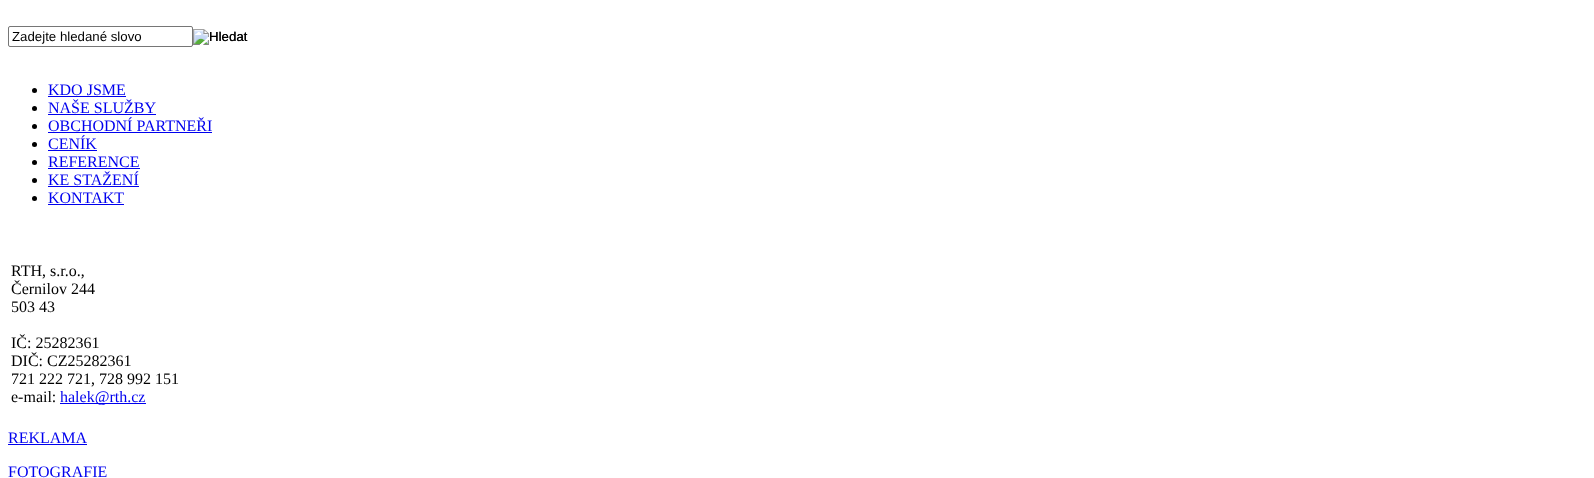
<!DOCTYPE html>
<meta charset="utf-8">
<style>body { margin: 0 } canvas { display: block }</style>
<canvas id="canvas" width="1594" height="478"></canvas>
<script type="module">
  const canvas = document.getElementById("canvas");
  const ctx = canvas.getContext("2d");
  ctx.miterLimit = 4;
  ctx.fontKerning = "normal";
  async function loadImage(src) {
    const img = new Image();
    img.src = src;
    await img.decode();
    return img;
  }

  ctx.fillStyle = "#ffffff";
  ctx.fillRect(0, 0, 1594, 478);
  ctx.beginPath();
  ctx.roundRect(8.5, 26.5, 184, 20, 1.5);
  ctx.strokeStyle = "#767676";
  ctx.stroke();
  ctx.font = "13.25px Liberation Sans";
  ctx.fillStyle = "#000000";
  ctx.fillText("Zadejte hledané slovo", 12, 41);
  ctx.drawImage(await loadImage("img1.png"), 193, 29, 55, 16);
  ctx.fillText("Hledat", 209, 41);
  ctx.beginPath();
  ctx.arc(34.5, 90.5, 2.5, 0, Math.PI * 2);
  ctx.fill();
  ctx.font = "16px Liberation Serif";
  ctx.fillStyle = "#0000ee";
  ctx.fillText("KDO JSME", 48, 95);
  ctx.fillRect(48, 96, 78, 1);
  ctx.fillStyle = "#000000";
  ctx.beginPath();
  ctx.arc(34.5, 108.5, 2.5, 0, Math.PI * 2);
  ctx.fill();
  ctx.fillStyle = "#0000ee";
  ctx.fillText("NAŠE SLUŽBY", 48, 113);
  ctx.fillRect(48, 114, 108, 1);
  ctx.fillStyle = "#000000";
  ctx.beginPath();
  ctx.arc(34.5, 126.5, 2.5, 0, Math.PI * 2);
  ctx.fill();
  ctx.fillStyle = "#0000ee";
  ctx.fillText("OBCHODNÍ PARTNEŘI", 48, 131);
  ctx.fillRect(48, 132, 164, 1);
  ctx.fillStyle = "#000000";
  ctx.beginPath();
  ctx.arc(34.5, 144.5, 2.5, 0, Math.PI * 2);
  ctx.fill();
  ctx.fillStyle = "#0000ee";
  ctx.fillText("CENÍK", 48, 149);
  ctx.fillRect(48, 150, 49, 1);
  ctx.fillStyle = "#000000";
  ctx.beginPath();
  ctx.arc(34.5, 162.5, 2.5, 0, Math.PI * 2);
  ctx.fill();
  ctx.fillStyle = "#0000ee";
  ctx.fillText("REFERENCE", 48, 167);
  ctx.fillRect(48, 168, 92, 1);
  ctx.fillStyle = "#000000";
  ctx.beginPath();
  ctx.arc(34.5, 180.5, 2.5, 0, Math.PI * 2);
  ctx.fill();
  ctx.fillStyle = "#0000ee";
  ctx.fillText("KE STAŽENÍ", 48, 185);
  ctx.fillRect(48, 186, 91, 1);
  ctx.fillStyle = "#000000";
  ctx.beginPath();
  ctx.arc(34.5, 198.5, 2.5, 0, Math.PI * 2);
  ctx.fill();
  ctx.fillStyle = "#0000ee";
  ctx.fillText("KONTAKT", 48, 203);
  ctx.fillRect(48, 204, 76, 1);
  ctx.fillStyle = "#000000";
  ctx.fillText("RTH, s.r.o.,", 11, 276);
  ctx.fillText("Černilov 244", 11, 294);
  ctx.fillText("503 43", 11, 312);
  ctx.fillText("IČ: 25282361", 11, 348);
  ctx.fillText("DIČ: CZ25282361", 11, 366);
  ctx.fillText("721 222 721, 728 992 151", 11, 384);
  ctx.fillText("e-mail:", 11, 402);
  ctx.fillStyle = "#0000ee";
  ctx.fillRect(60, 403, 86, 1);
  ctx.fillText("halek@rth.cz", 60, 402);
  ctx.fillText("REKLAMA", 8, 443);
  ctx.fillRect(8, 444, 79, 1);
  ctx.fillText("FOTOGRAFIE", 8, 477);
</script>
